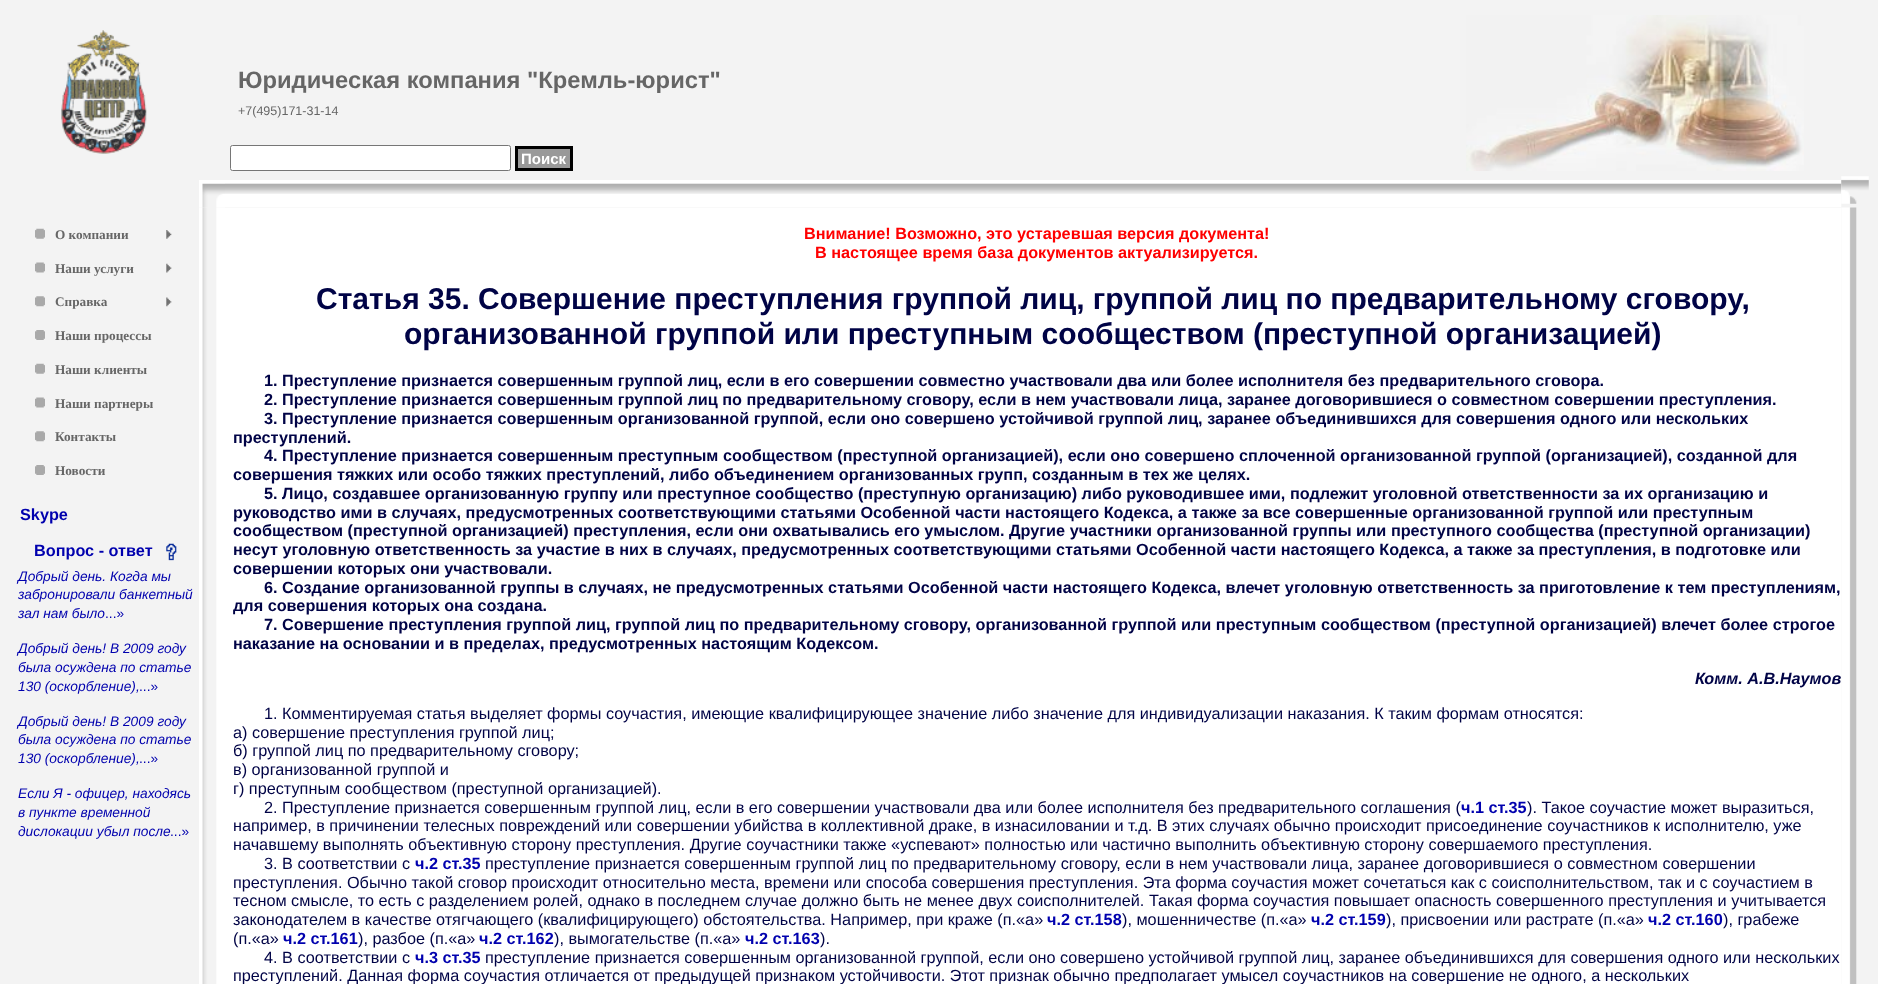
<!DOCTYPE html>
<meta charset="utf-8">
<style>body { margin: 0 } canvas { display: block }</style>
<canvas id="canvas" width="1878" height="984"></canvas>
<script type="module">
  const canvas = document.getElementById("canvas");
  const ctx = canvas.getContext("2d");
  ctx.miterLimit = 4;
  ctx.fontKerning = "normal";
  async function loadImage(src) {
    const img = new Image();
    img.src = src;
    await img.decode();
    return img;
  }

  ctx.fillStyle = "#f3f3f3";
  ctx.fillRect(0, 0, 1878, 984);
  ctx.drawImage(await loadImage("img1.png"), 61, 30, 86, 124);
  ctx.drawImage(await loadImage("img2.png"), 1466, 15, 338, 156);
  ctx.font = "bold 23.75px Liberation Sans";
  ctx.fillStyle = "#666666";
  ctx.fillText("Юридическая компания \"Кремль-юрист\"", 238, 88);
  ctx.font = "12.5px Liberation Sans";
  ctx.fillText("+7(495)171-31-14", 238, 115);
  ctx.fillStyle = "#ffffff";
  ctx.beginPath();
  ctx.roundRect(230.5, 145.5, 280, 25, 2);
  ctx.fill();
  ctx.strokeStyle = "#767676";
  ctx.stroke();
  ctx.fillStyle = "#999999";
  ctx.beginPath();
  ctx.rect(516.5, 147.5, 55, 22);
  ctx.fill();
  ctx.strokeStyle = "#000000";
  ctx.lineWidth = 3;
  ctx.stroke();
  ctx.font = "bold 15px Liberation Sans";
  ctx.fillStyle = "#ffffff";
  ctx.fillText("Поиск", 521, 164);
  ctx.drawImage(await loadImage("img3.png"), 199, 180, 26, 28);
  ctx.drawImage(await loadImage("img4.png"), 225, 180, 1617, 28);
  ctx.drawImage(await loadImage("img5.png"), 1841, 176, 28, 28);
  ctx.drawImage(await loadImage("img6.png"), 35, 228, 10, 11);
  ctx.font = "bold 13.25px Liberation Serif";
  ctx.fillStyle = "#666666";
  ctx.fillText("О компании", 55, 239);
  ctx.drawImage(await loadImage("img7.png"), 166, 230, 6, 9);
  ctx.drawImage(await loadImage("img8.png"), 35, 262, 10, 11);
  ctx.fillText("Наши услуги", 55, 273);
  ctx.drawImage(await loadImage("img9.png"), 166, 263, 6, 10);
  ctx.drawImage(await loadImage("img10.png"), 35, 296, 10, 11);
  ctx.fillText("Справка", 55, 306);
  ctx.drawImage(await loadImage("img11.png"), 166, 297, 6, 10);
  ctx.drawImage(await loadImage("img12.png"), 35, 330, 10, 10);
  ctx.fillText("Наши процессы", 55, 340);
  ctx.drawImage(await loadImage("img6.png"), 35, 363, 10, 11);
  ctx.fillText("Наши клиенты", 55, 374);
  ctx.drawImage(await loadImage("img8.png"), 35, 397, 10, 11);
  ctx.fillText("Наши партнеры", 55, 408);
  ctx.drawImage(await loadImage("img10.png"), 35, 431, 10, 11);
  ctx.fillText("Контакты", 55, 441);
  ctx.drawImage(await loadImage("img12.png"), 35, 465, 10, 10);
  ctx.fillText("Новости", 55, 475);
  ctx.font = "bold 16.25px Liberation Sans";
  ctx.fillStyle = "#0000ae";
  ctx.fillText("Skype", 20, 520);
  ctx.fillText("Вопрос - ответ", 34, 556);
  ctx.drawImage(await loadImage("img13.png"), 166, 543, 11, 18);
  ctx.font = "italic 13.75px Liberation Sans";
  ctx.fillText("Добрый день. Когда мы", 18, 581);
  ctx.fillText("забронировали банкетный", 18, 599);
  ctx.fillText("зал нам было", 18, 618);
  ctx.font = "13.75px Liberation Sans";
  ctx.fillText("...»", 105, 618);
  ctx.font = "italic 13.75px Liberation Sans";
  ctx.fillText("Добрый день! В 2009 году", 18, 653);
  ctx.fillText("была осуждена по статье", 18, 672);
  ctx.fillText("130 (оскорбление),", 18, 691);
  ctx.font = "13.75px Liberation Sans";
  ctx.fillText("...»", 139, 691);
  ctx.font = "italic 13.75px Liberation Sans";
  ctx.fillText("Добрый день! В 2009 году", 18, 726);
  ctx.fillText("была осуждена по статье", 18, 744);
  ctx.fillText("130 (оскорбление),", 18, 763);
  ctx.font = "13.75px Liberation Sans";
  ctx.fillText("...»", 139, 763);
  ctx.font = "italic 13.75px Liberation Sans";
  ctx.fillText("Если Я - офицер, находясь", 18, 798);
  ctx.fillText("в пункте временной", 18, 817);
  ctx.fillText("дислокации убыл после", 18, 836);
  ctx.font = "13.75px Liberation Sans";
  ctx.fillText("...»", 170, 836);
  ctx.drawImage(await loadImage("img14.png"), 199, 207, 26, 777);
  ctx.fillStyle = "#ffffff";
  ctx.fillRect(225, 208, 1616, 776);
  ctx.font = "bold 16.25px Liberation Sans";
  ctx.fillStyle = "#ff0000";
  ctx.fillText("Внимание! Возможно, это устаревшая версия документа!", 804, 239);
  ctx.fillText("В настоящее время база документов актуализируется.", 815, 258);
  ctx.font = "bold 30px Liberation Sans";
  ctx.fillStyle = "#000346";
  ctx.fillText("Статья 35. Совершение преступления группой лиц, группой лиц по предварительному сговору,", 316, 309);
  ctx.fillText("организованной группой или преступным сообществом (преступной организацией)", 404, 344);
  ctx.font = "bold 16.25px Liberation Sans";
  ctx.fillText("1. Преступление признается совершенным группой лиц, если в его совершении совместно участвовали два или более исполнителя без предварительного сговора.", 264, 386);
  ctx.fillText("2. Преступление признается совершенным группой лиц по предварительному сговору, если в нем участвовали лица, заранее договорившиеся о совместном совершении преступления.", 264, 405);
  ctx.fillText("3. Преступление признается совершенным организованной группой, если оно совершено устойчивой группой лиц, заранее объединившихся для совершения одного или нескольких", 264, 424);
  ctx.fillText("преступлений.", 233, 443);
  ctx.fillText("4. Преступление признается совершенным преступным сообществом (преступной организацией), если оно совершено сплоченной организованной группой (организацией), созданной для", 264, 461);
  ctx.fillText("совершения тяжких или особо тяжких преступлений, либо объединением организованных групп, созданным в тех же целях.", 233, 480);
  ctx.fillText("5. Лицо, создавшее организованную группу или преступное сообщество (преступную организацию) либо руководившее ими, подлежит уголовной ответственности за их организацию и", 264, 499);
  ctx.fillText("руководство ими в случаях, предусмотренных соответствующими статьями Особенной части настоящего Кодекса, а также за все совершенные организованной группой или преступным", 233, 518);
  ctx.fillText("сообществом (преступной организацией) преступления, если они охватывались его умыслом. Другие участники организованной группы или преступного сообщества (преступной организации)", 233, 536);
  ctx.fillText("несут уголовную ответственность за участие в них в случаях, предусмотренных соответствующими статьями Особенной части настоящего Кодекса, а также за преступления, в подготовке или", 233, 555);
  ctx.fillText("совершении которых они участвовали.", 233, 574);
  ctx.fillText("6. Создание организованной группы в случаях, не предусмотренных статьями Особенной части настоящего Кодекса, влечет уголовную ответственность за приготовление к тем преступлениям,", 264, 593);
  ctx.fillText("для совершения которых она создана.", 233, 611);
  ctx.fillText("7. Совершение преступления группой лиц, группой лиц по предварительному сговору, организованной группой или преступным сообществом (преступной организацией) влечет более строгое", 264, 630);
  ctx.fillText("наказание на основании и в пределах, предусмотренных настоящим Кодексом.", 233, 649);
  ctx.font = "italic bold 16.25px Liberation Sans";
  ctx.fillText("Комм. А.В.Наумов", 1695, 684);
  ctx.font = "16.25px Liberation Sans";
  ctx.fillText("1. Комментируемая статья выделяет формы соучастия, имеющие квалифицирующее значение либо значение для индивидуализации наказания. К таким формам относятся:", 264, 719);
  ctx.fillText("а) совершение преступления группой лиц;", 233, 738);
  ctx.fillText("б) группой лиц по предварительному сговору;", 233, 756);
  ctx.fillText("в) организованной группой и", 233, 775);
  ctx.fillText("г) преступным сообществом (преступной организацией).", 233, 794);
  ctx.fillText("2. Преступление признается совершенным группой лиц, если в его совершении участвовали два или более исполнителя без предварительного соглашения (", 264, 813);
  ctx.font = "bold 16.25px Liberation Sans";
  ctx.fillStyle = "#0000ae";
  ctx.fillText("ч.1 ст.35", 1461, 813);
  ctx.font = "16.25px Liberation Sans";
  ctx.fillStyle = "#000346";
  ctx.fillText("). Такое соучастие может выразиться,", 1527, 813);
  ctx.fillText("например, в причинении телесных повреждений или совершении убийства в коллективной драке, в изнасиловании и т.д. В этих случаях обычно происходит присоединение соучастников к исполнителю, уже", 233, 831);
  ctx.fillText("начавшему выполнять объективную сторону преступления. Другие соучастники также «успевают» полностью или частично выполнить объективную сторону совершаемого преступления.", 233, 850);
  ctx.fillText("3. В соответствии с", 264, 869);
  ctx.font = "bold 16.25px Liberation Sans";
  ctx.fillStyle = "#0000ae";
  ctx.fillText("ч.2 ст.35", 415, 869);
  ctx.font = "16.25px Liberation Sans";
  ctx.fillStyle = "#000346";
  ctx.fillText("преступление признается совершенным группой лиц по предварительному сговору, если в нем участвовали лица, заранее договорившиеся о совместном совершении", 485, 869);
  ctx.fillText("преступления. Обычно такой сговор происходит относительно места, времени или способа совершения преступления. Эта форма соучастия может сочетаться как с соисполнительством, так и с соучастием в", 233, 888);
  ctx.fillText("тесном смысле, то есть с разделением ролей, однако в последнем случае должно быть не менее двух соисполнителей. Такая форма соучастия повышает опасность совершенного преступления и учитывается", 233, 906);
  ctx.fillText("законодателем в качестве отягчающего (квалифицирующего) обстоятельства. Например, при краже (п.«а»", 233, 925);
  ctx.font = "bold 16.25px Liberation Sans";
  ctx.fillStyle = "#0000ae";
  ctx.fillText("ч.2 ст.158", 1047, 925);
  ctx.font = "16.25px Liberation Sans";
  ctx.fillStyle = "#000346";
  ctx.fillText("), мошенничестве (п.«а»", 1122, 925);
  ctx.font = "bold 16.25px Liberation Sans";
  ctx.fillStyle = "#0000ae";
  ctx.fillText("ч.2 ст.159", 1311, 925);
  ctx.font = "16.25px Liberation Sans";
  ctx.fillStyle = "#000346";
  ctx.fillText("), присвоении или растрате (п.«а»", 1386, 925);
  ctx.font = "bold 16.25px Liberation Sans";
  ctx.fillStyle = "#0000ae";
  ctx.fillText("ч.2 ст.160", 1648, 925);
  ctx.font = "16.25px Liberation Sans";
  ctx.fillStyle = "#000346";
  ctx.fillText("), грабеже", 1723, 925);
  ctx.fillText("(п.«а»", 233, 944);
  ctx.font = "bold 16.25px Liberation Sans";
  ctx.fillStyle = "#0000ae";
  ctx.fillText("ч.2 ст.161", 283, 944);
  ctx.font = "16.25px Liberation Sans";
  ctx.fillStyle = "#000346";
  ctx.fillText("), разбое (п.«а»", 358, 944);
  ctx.font = "bold 16.25px Liberation Sans";
  ctx.fillStyle = "#0000ae";
  ctx.fillText("ч.2 ст.162", 479, 944);
  ctx.font = "16.25px Liberation Sans";
  ctx.fillStyle = "#000346";
  ctx.fillText("), вымогательстве (п.«а»", 554, 944);
  ctx.font = "bold 16.25px Liberation Sans";
  ctx.fillStyle = "#0000ae";
  ctx.fillText("ч.2 ст.163", 745, 944);
  ctx.font = "16.25px Liberation Sans";
  ctx.fillStyle = "#000346";
  ctx.fillText(").", 820, 944);
  ctx.fillText("4. В соответствии с", 264, 963);
  ctx.font = "bold 16.25px Liberation Sans";
  ctx.fillStyle = "#0000ae";
  ctx.fillText("ч.3 ст.35", 415, 963);
  ctx.font = "16.25px Liberation Sans";
  ctx.fillStyle = "#000346";
  ctx.fillText("преступление признается совершенным организованной группой, если оно совершено устойчивой группой лиц, заранее объединившихся для совершения одного или нескольких", 485, 963);
  ctx.fillText("преступлений. Данная форма соучастия отличается от предыдущей признаком устойчивости. Этот признак обычно предполагает умысел соучастников на совершение не одного, а нескольких", 233, 981);
  ctx.drawImage(await loadImage("img15.png"), 1841, 207, 16, 777);
</script>
